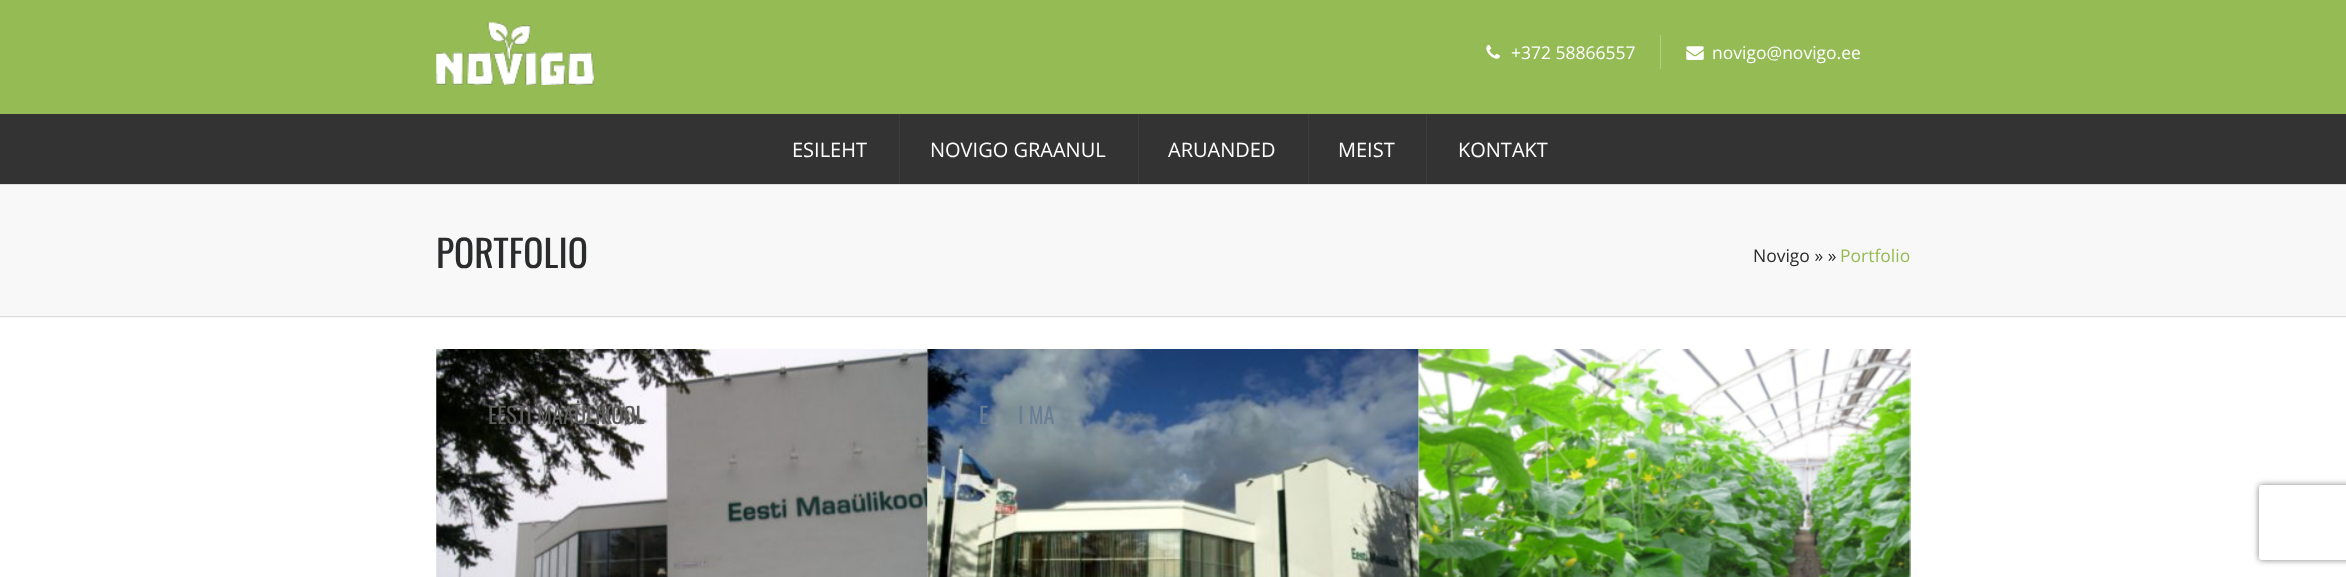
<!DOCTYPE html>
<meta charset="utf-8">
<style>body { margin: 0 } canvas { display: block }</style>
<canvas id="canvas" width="2346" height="577"></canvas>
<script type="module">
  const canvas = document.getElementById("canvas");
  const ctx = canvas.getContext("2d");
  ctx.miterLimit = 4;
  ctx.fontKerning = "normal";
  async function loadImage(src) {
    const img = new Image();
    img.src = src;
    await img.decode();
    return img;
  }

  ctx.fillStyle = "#ffffff";
  ctx.fillRect(0, 0, 2346, 577);
  ctx.fillStyle = "#94bb54";
  ctx.fillRect(0, 0, 2346, 114);
  ctx.drawImage(await loadImage("img1.png"), 436, 22, 158, 63);
  ctx.fillStyle = "#b4cf87";
  ctx.fillRect(1660, 35, 1, 34);
  ctx.drawImage(await loadImage("img2.png"), 1486, 45, 14, 14);
  ctx.font = "17.5px Open Sans";
  ctx.fillStyle = "#ffffff";
  ctx.fillText("+372 58866557", 1511, 59);
  ctx.drawImage(await loadImage("img3.png"), 1686, 46, 18, 14);
  ctx.fillText("novigo@novigo.ee", 1712, 59);
  ctx.fillStyle = "#333333";
  ctx.fillRect(0, 114, 2346, 70);
  ctx.fillStyle = "#3d3d3d";
  ctx.fillRect(899, 114, 1, 70);
  ctx.font = "20px Open Sans";
  ctx.fillStyle = "#ffffff";
  ctx.fillText("ESILEHT", 792, 157);
  ctx.fillStyle = "#3d3d3d";
  ctx.fillRect(1138, 114, 1, 70);
  ctx.fillStyle = "#ffffff";
  ctx.fillText("NOVIGO GRAANUL", 930, 157);
  ctx.fillStyle = "#3d3d3d";
  ctx.fillRect(1308, 114, 1, 70);
  ctx.fillStyle = "#ffffff";
  ctx.fillText("ARUANDED", 1168, 157);
  ctx.fillStyle = "#3d3d3d";
  ctx.fillRect(1426, 114, 1, 70);
  ctx.fillStyle = "#ffffff";
  ctx.fillText("MEIST", 1338, 157);
  ctx.fillText("KONTAKT", 1458, 157);
  ctx.fillStyle = "#f8f8f8";
  ctx.fillRect(0, 185, 2346, 133);
  ctx.fillStyle = "#dddddd";
  ctx.fillRect(0, 184, 2346, 1);
  ctx.fillRect(0, 316, 2346, 1);
  ctx.font = "37.5px Oswald";
  ctx.fillStyle = "#2a2b2c";
  ctx.fillText("PORTFOLIO", 436, 268);
  ctx.font = "17.5px Open Sans";
  ctx.fillText("Novigo » »", 1753, 262);
  ctx.fillStyle = "#94bb54";
  ctx.fillText("Portfolio", 1840, 262);
  ctx.drawImage(await loadImage("img4.png"), 436, 349, 492, 228);
  ctx.font = "22.5px Oswald";
  ctx.fillStyle = "#5e5d5d";
  ctx.fillText("EESTI MAAÜLIKOOL", 488, 424);
  ctx.drawImage(await loadImage("img5.png"), 927, 349, 492, 228);
  ctx.fillStyle = "#677e95";
  ctx.fillText("E", 979, 424);
  ctx.fillText("I MA", 1018, 424);
  ctx.drawImage(await loadImage("img6.png"), 1418, 349, 493, 228);
  ctx.save();
  ctx.beginPath();
  ctx.moveTo(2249, 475);
  ctx.lineTo(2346, 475);
  ctx.lineTo(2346, 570);
  ctx.lineTo(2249, 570);
  ctx.closePath();
  ctx.moveTo(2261.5, 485);
  ctx.lineTo(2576.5, 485);
  ctx.bezierCurveTo(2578, 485, 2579, 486, 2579, 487.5);
  ctx.lineTo(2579, 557.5);
  ctx.bezierCurveTo(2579, 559, 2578, 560, 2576.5, 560);
  ctx.lineTo(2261.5, 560);
  ctx.bezierCurveTo(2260, 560, 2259, 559, 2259, 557.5);
  ctx.lineTo(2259, 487.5);
  ctx.bezierCurveTo(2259, 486, 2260, 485, 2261.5, 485);
  ctx.closePath();
  ctx.clip("evenodd");
  ctx.fillStyle = "#808080";
  ctx.filter = "blur(3px)";
  ctx.beginPath();
  ctx.roundRect(2259, 485, 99, 75, 2.5);
  ctx.fill();
  ctx.filter = "none";
  ctx.restore();
</script>
